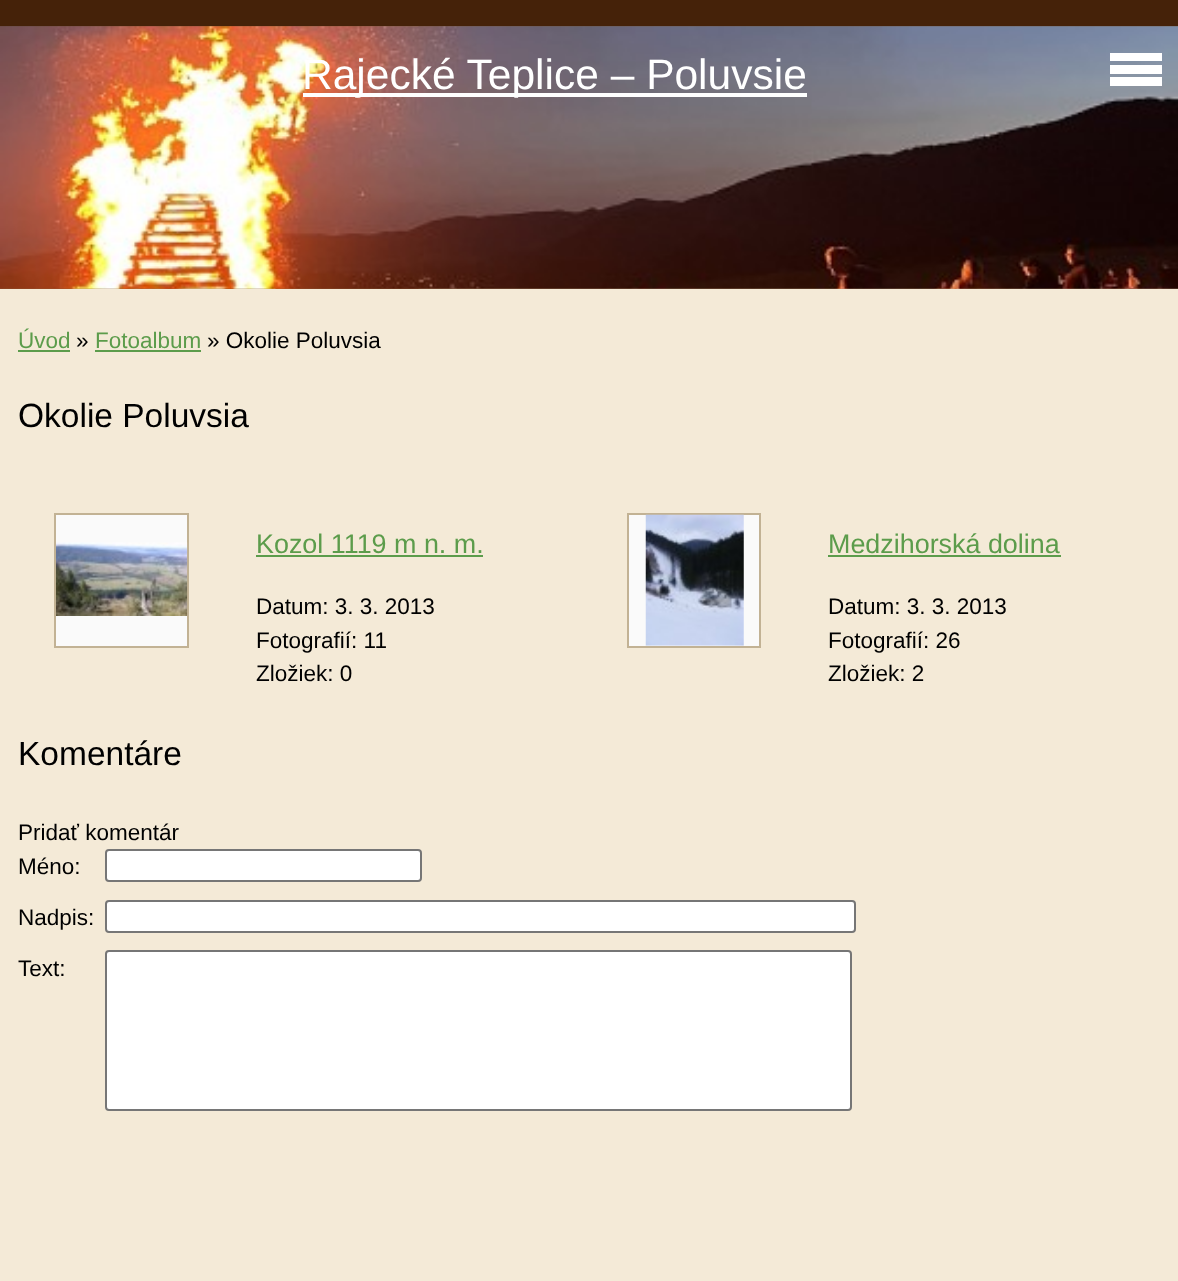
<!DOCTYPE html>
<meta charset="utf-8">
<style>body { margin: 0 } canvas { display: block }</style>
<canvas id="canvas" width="1178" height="1281"></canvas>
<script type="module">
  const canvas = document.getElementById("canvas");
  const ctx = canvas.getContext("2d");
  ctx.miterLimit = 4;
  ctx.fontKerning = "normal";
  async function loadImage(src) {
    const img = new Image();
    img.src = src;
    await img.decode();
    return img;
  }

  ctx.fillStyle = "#452209";
  ctx.fillRect(0, 0, 1178, 1281);
  ctx.fillStyle = "#f4ead7";
  ctx.fillRect(0, 26, 1178, 1255);
  ctx.drawImage(await loadImage("img1.png"), 0, 26, 1178, 263);
  ctx.drawImage(await loadImage("img2.png"), 0, 26, 1178, 263);
  ctx.fillStyle = "#ffffff";
  ctx.fillRect(303, 93, 504, 4);
  ctx.font = "42.5px Liberation Sans";
  ctx.fillText("Rajecké Teplice – Poluvsie", 302, 89);
  ctx.fillRect(1110, 53, 52, 8);
  ctx.fillRect(1110, 65, 52, 9);
  ctx.fillRect(1110, 77, 52, 9);
  ctx.font = "22.5px Liberation Sans";
  ctx.fillStyle = "#5c9c4b";
  ctx.fillText("Úvod", 18, 348);
  ctx.fillRect(18, 350, 52, 2);
  ctx.fillStyle = "#000000";
  ctx.fillText("»", 76, 348);
  ctx.fillStyle = "#5c9c4b";
  ctx.fillText("Fotoalbum", 95, 348);
  ctx.fillRect(95, 350, 106, 2);
  ctx.fillStyle = "#000000";
  ctx.fillText("» Okolie Poluvsia", 207, 348);
  ctx.font = "33.5px Liberation Sans";
  ctx.fillText("Okolie Poluvsia", 18, 427);
  ctx.fillStyle = "#fafafa";
  ctx.beginPath();
  ctx.rect(55, 514, 133, 133);
  ctx.fill();
  ctx.strokeStyle = "#c2b294";
  ctx.lineWidth = 2;
  ctx.stroke();
  ctx.drawImage(await loadImage("img3.png"), 56, 542, 132, 74);
  ctx.font = "26.9px Liberation Sans";
  ctx.fillStyle = "#5c9c4b";
  ctx.fillText("Kozol 1119 m n. m.", 256, 553);
  ctx.fillRect(256, 555, 227, 2);
  ctx.font = "22.5px Liberation Sans";
  ctx.fillStyle = "#000000";
  ctx.fillText("Datum: 3. 3. 2013", 256, 614);
  ctx.fillText("Fotografií: 11", 256, 648);
  ctx.fillText("Zložiek: 0", 256, 681);
  ctx.fillStyle = "#fafafa";
  ctx.beginPath();
  ctx.rect(628, 514, 132, 133);
  ctx.fill();
  ctx.stroke();
  ctx.drawImage(await loadImage("img4.png"), 645, 514, 99, 132);
  ctx.font = "26.9px Liberation Sans";
  ctx.fillStyle = "#5c9c4b";
  ctx.fillText("Medzihorská dolina", 828, 553);
  ctx.fillRect(828, 555, 233, 2);
  ctx.font = "22.5px Liberation Sans";
  ctx.fillStyle = "#000000";
  ctx.fillText("Datum: 3. 3. 2013", 828, 614);
  ctx.fillText("Fotografií: 26", 828, 648);
  ctx.fillText("Zložiek: 2", 828, 681);
  ctx.font = "33.5px Liberation Sans";
  ctx.fillText("Komentáre", 18, 765);
  ctx.font = "22.5px Liberation Sans";
  ctx.fillText("Pridať komentár", 18, 840);
  ctx.fillText("Méno:", 18, 874);
  ctx.fillStyle = "#ffffff";
  ctx.beginPath();
  ctx.roundRect(106, 850, 315, 31, 3);
  ctx.fill();
  ctx.strokeStyle = "#767676";
  ctx.stroke();
  ctx.fillStyle = "#000000";
  ctx.fillText("Nadpis:", 18, 925);
  ctx.fillStyle = "#ffffff";
  ctx.beginPath();
  ctx.roundRect(106, 901, 749, 31, 3);
  ctx.fill();
  ctx.stroke();
  ctx.fillStyle = "#000000";
  ctx.fillText("Text:", 18, 976);
  ctx.fillStyle = "#ffffff";
  ctx.beginPath();
  ctx.roundRect(106, 951, 745, 159, 3);
  ctx.fill();
  ctx.stroke();
</script>
